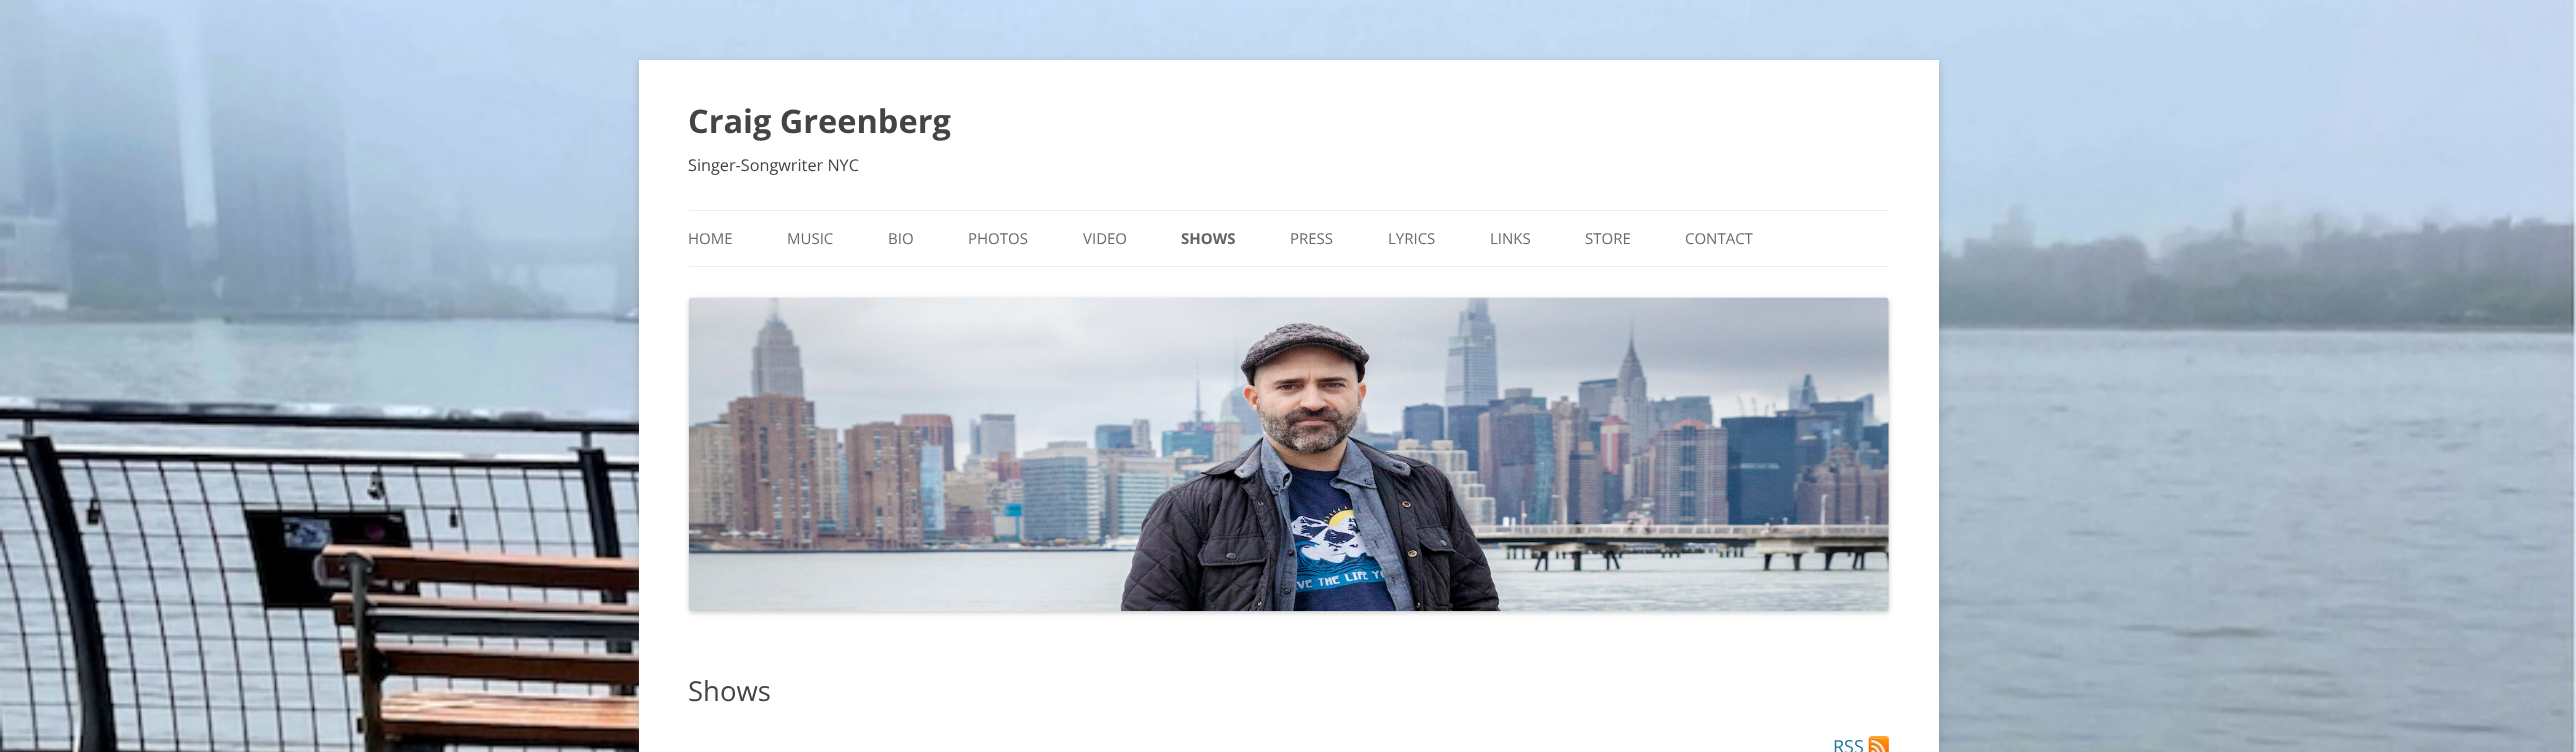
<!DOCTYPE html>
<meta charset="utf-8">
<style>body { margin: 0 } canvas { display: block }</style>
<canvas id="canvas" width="2576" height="752"></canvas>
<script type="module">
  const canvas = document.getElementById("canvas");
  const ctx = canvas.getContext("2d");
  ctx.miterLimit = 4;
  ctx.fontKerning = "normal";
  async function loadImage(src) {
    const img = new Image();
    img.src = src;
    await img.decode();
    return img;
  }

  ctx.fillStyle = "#ffffff";
  ctx.fillRect(0, 0, 2576, 752);
  ctx.drawImage(await loadImage("img1.png"), 0, 0, 2576, 752);
  ctx.fillStyle = "rgba(100, 100, 100, 0.3)";
  ctx.filter = "blur(4px)";
  ctx.beginPath();
  ctx.rect(639, 63, 1300, 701);
  ctx.fill();
  ctx.filter = "none";
  ctx.fillStyle = "#ffffff";
  ctx.fillRect(639, 60, 1300, 692);
  ctx.font = "bold 32.5px Open Sans";
  ctx.fillStyle = "#444444";
  ctx.fillText("Craig Greenberg", 688, 133);
  ctx.font = "16.25px Open Sans";
  ctx.fillText("Singer-Songwriter NYC", 688, 171);
  ctx.fillStyle = "#ededed";
  ctx.fillRect(689, 210, 1200, 1);
  ctx.fillRect(689, 266, 1200, 1);
  ctx.font = "15px Open Sans";
  ctx.fillStyle = "#6a6a6a";
  ctx.fillText("HOME", 688, 244);
  ctx.fillText("MUSIC", 787, 244);
  ctx.fillText("BIO", 888, 244);
  ctx.fillText("PHOTOS", 968, 244);
  ctx.fillText("VIDEO", 1083, 244);
  ctx.font = "bold 15px Open Sans";
  ctx.fillStyle = "#636363";
  ctx.fillText("SHOWS", 1181, 244);
  ctx.font = "15px Open Sans";
  ctx.fillStyle = "#6a6a6a";
  ctx.fillText("PRESS", 1290, 244);
  ctx.fillText("LYRICS", 1388, 244);
  ctx.fillText("LINKS", 1490, 244);
  ctx.fillText("STORE", 1585, 244);
  ctx.fillText("CONTACT", 1685, 244);
  ctx.fillStyle = "rgba(0, 0, 0, 0.2)";
  ctx.filter = "blur(2.5px)";
  ctx.beginPath();
  ctx.roundRect(689, 299, 1200, 314, 4);
  ctx.fill();
  ctx.filter = "none";
  ctx.drawImage(await loadImage("img2.png"), 688, 297, 1201, 315);
  ctx.font = "27.5px Open Sans";
  ctx.fillStyle = "#444444";
  ctx.fillText("Shows", 688, 701);
  ctx.drawImage(await loadImage("img3.png"), 1868, 736, 21, 16);
  ctx.font = "18px Open Sans";
  ctx.fillStyle = "#21759b";
  ctx.fillText("RSS", 1833, 753);
</script>
